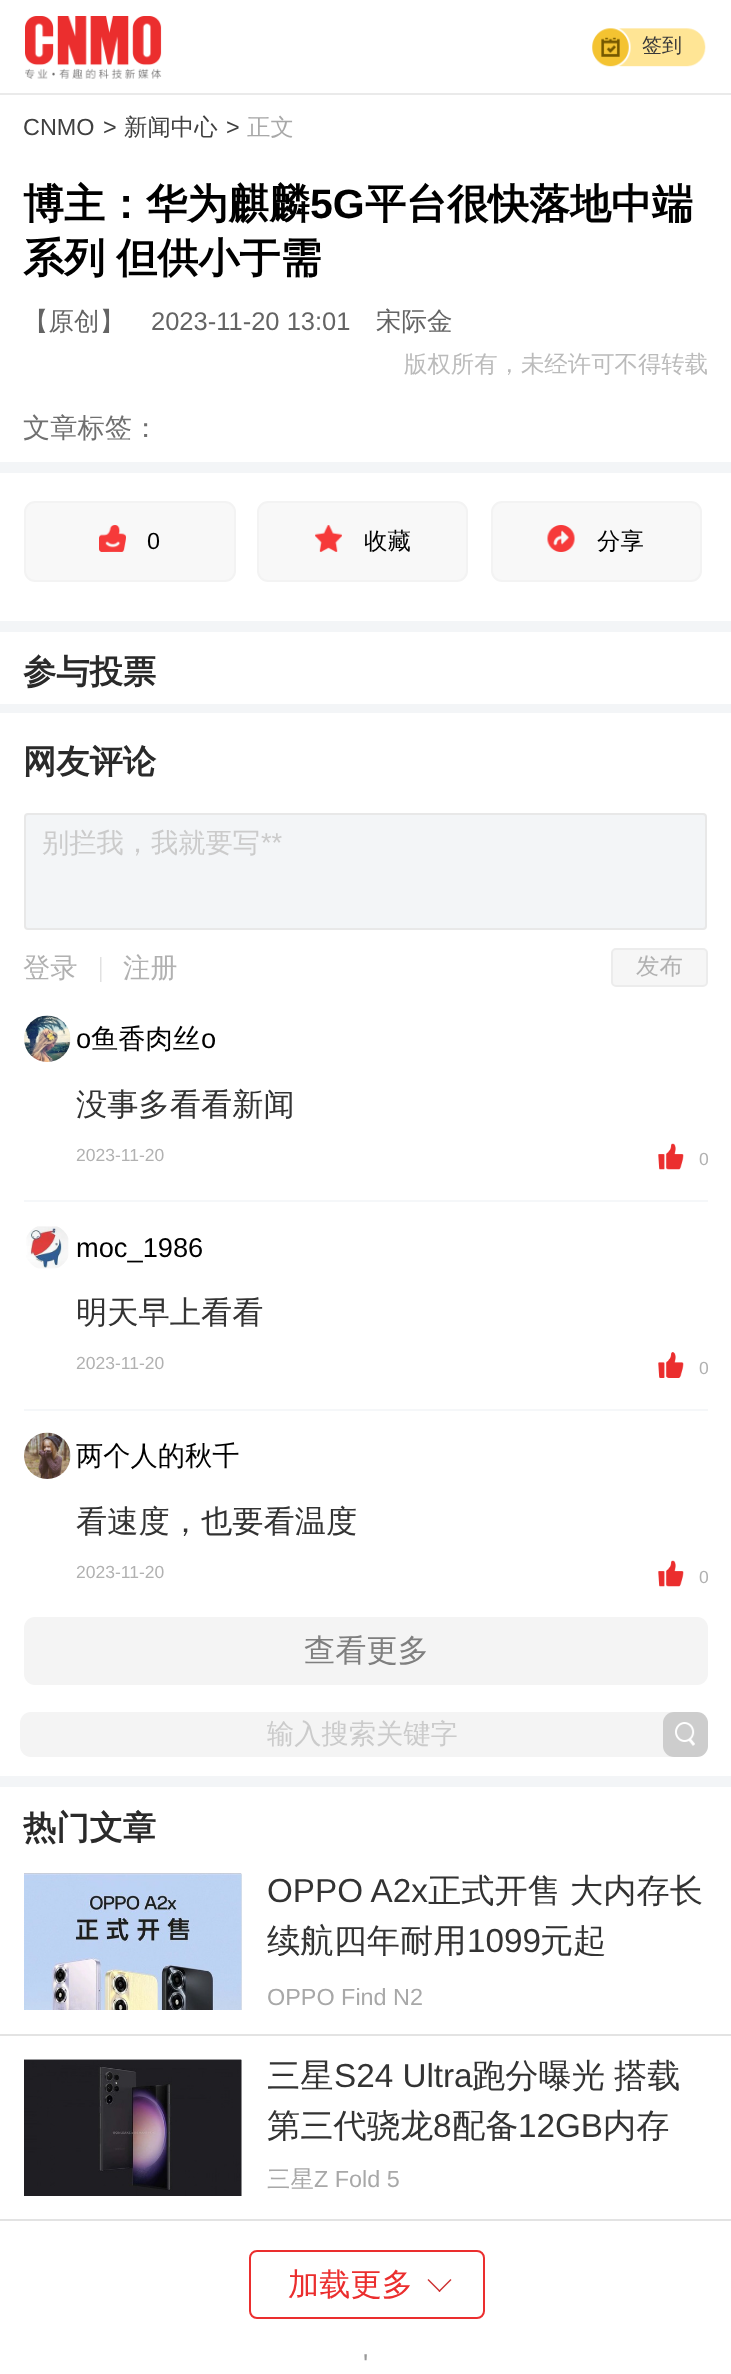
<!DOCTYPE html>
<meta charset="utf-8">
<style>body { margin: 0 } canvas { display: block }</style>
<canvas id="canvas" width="731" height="2374"></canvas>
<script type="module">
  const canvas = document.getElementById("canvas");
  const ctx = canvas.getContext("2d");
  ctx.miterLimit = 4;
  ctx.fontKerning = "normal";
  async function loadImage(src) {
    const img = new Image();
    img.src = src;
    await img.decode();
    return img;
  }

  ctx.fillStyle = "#ffffff";
  ctx.fillRect(0, 0, 731, 2374);
  ctx.fillStyle = "#eaeaea";
  ctx.fillRect(0, 93, 731, 2);
  ctx.drawImage(await loadImage("img1.png"), 25, 16, 137, 63);
  ctx.drawImage(await loadImage("img2.png"), 592, 28, 114, 39);
  ctx.font = "500 20px WenQuanYi Zen Hei";
  ctx.fillStyle = "#393939";
  ctx.fillText("签到", 642, 52);
  ctx.font = "23.4px Liberation Sans";
  ctx.fillStyle = "#404040";
  ctx.fillText("CNMO", 23, 135);
  ctx.fillText(">", 103, 135);
  ctx.font = "500 23.4px WenQuanYi Zen Hei";
  ctx.fillText("新闻中心", 124, 135);
  ctx.font = "23.4px Liberation Sans";
  ctx.fillText(">", 226, 135);
  ctx.font = "500 23.4px WenQuanYi Zen Hei";
  ctx.fillStyle = "#a8a8a8";
  ctx.fillText("正文", 247, 135);
  ctx.font = "bold 41px WenQuanYi Zen Hei";
  ctx.fillStyle = "#000000";
  ctx.fillText("博主：华为麒麟", 23, 218);
  ctx.font = "bold 41px Liberation Sans";
  ctx.fillText("5G", 310, 218);
  ctx.font = "bold 41px WenQuanYi Zen Hei";
  ctx.fillText("平台很快落地中端", 365, 218);
  ctx.wordSpacing = "-1px";
  ctx.fillText("系列 但供小于需", 23, 272);
  ctx.wordSpacing = "0px";
  ctx.font = "500 25.5px WenQuanYi Zen Hei";
  ctx.fillStyle = "#646464";
  ctx.fillText("【原创】", 23, 330);
  ctx.font = "25.5px Liberation Sans";
  ctx.fillText("2023-11-20 13:01", 151, 330);
  ctx.font = "500 25.5px WenQuanYi Zen Hei";
  ctx.fillText("宋际金", 376, 330);
  ctx.font = "500 23.4px WenQuanYi Zen Hei";
  ctx.fillStyle = "#bbbbbb";
  ctx.fillText("版权所有，未经许可不得转载", 404, 372);
  ctx.font = "500 27.25px WenQuanYi Zen Hei";
  ctx.fillStyle = "#707070";
  ctx.fillText("文章标签：", 23, 437);
  ctx.fillStyle = "#f3f5f7";
  ctx.fillRect(0, 462, 731, 11);
  ctx.fillStyle = "#f8f8f8";
  ctx.beginPath();
  ctx.roundRect(25, 502, 210, 79, 10);
  ctx.fill();
  ctx.strokeStyle = "#f3f3f3";
  ctx.lineWidth = 2;
  ctx.stroke();
  ctx.drawImage(await loadImage("img3.png"), 99, 525, 27, 27);
  ctx.font = "23.4px Liberation Sans";
  ctx.fillStyle = "#000000";
  ctx.fillText("0", 147, 549);
  ctx.fillStyle = "#f8f8f8";
  ctx.beginPath();
  ctx.roundRect(258, 502, 209, 79, 10);
  ctx.fill();
  ctx.stroke();
  ctx.drawImage(await loadImage("img4.png"), 315, 525, 27, 27);
  ctx.font = "500 23.4px WenQuanYi Zen Hei";
  ctx.fillStyle = "#000000";
  ctx.fillText("收藏", 364, 549);
  ctx.fillStyle = "#f8f8f8";
  ctx.beginPath();
  ctx.roundRect(492, 502, 209, 79, 10);
  ctx.fill();
  ctx.stroke();
  ctx.drawImage(await loadImage("img5.png"), 547, 525, 28, 27);
  ctx.fillStyle = "#000000";
  ctx.fillText("分享", 597, 549);
  ctx.fillStyle = "#f3f5f7";
  ctx.fillRect(0, 621, 731, 11);
  ctx.font = "bold 33.25px WenQuanYi Zen Hei";
  ctx.fillStyle = "#2a2a2a";
  ctx.fillText("参与投票", 23, 683);
  ctx.fillStyle = "#f3f5f7";
  ctx.fillRect(0, 704, 731, 9);
  ctx.fillStyle = "#2a2a2a";
  ctx.fillText("网友评论", 23, 773);
  ctx.fillStyle = "#f3f5f7";
  ctx.beginPath();
  ctx.roundRect(25, 814, 681, 115, 3);
  ctx.fill();
  ctx.strokeStyle = "#e8e8e8";
  ctx.stroke();
  ctx.font = "500 27.25px WenQuanYi Zen Hei";
  ctx.fillStyle = "#cbcbcb";
  ctx.fillText("别拦我，我就要写", 42, 852);
  ctx.font = "27.25px Liberation Sans";
  ctx.fillText("**", 261, 852);
  ctx.font = "500 27.25px WenQuanYi Zen Hei";
  ctx.fillStyle = "#b1b1b1";
  ctx.fillText("登录", 23, 977);
  ctx.font = "27.25px Liberation Serif";
  ctx.fillStyle = "#e0e0e0";
  ctx.fillText("|", 98, 976);
  ctx.font = "500 27.25px WenQuanYi Zen Hei";
  ctx.fillStyle = "#b1b1b1";
  ctx.fillText("注册", 123, 977);
  ctx.fillStyle = "#f6f6f6";
  ctx.beginPath();
  ctx.roundRect(612, 949, 95, 37, 4);
  ctx.fill();
  ctx.strokeStyle = "#ececec";
  ctx.stroke();
  ctx.font = "500 23.4px WenQuanYi Zen Hei";
  ctx.fillStyle = "#b1b1b1";
  ctx.fillText("发布", 636, 974);
  ctx.drawImage(await loadImage("img6.png"), 24, 1015, 47, 47);
  ctx.font = "27.25px Liberation Sans";
  ctx.fillStyle = "#000000";
  ctx.fillText("o", 76, 1048);
  ctx.font = "500 27.25px WenQuanYi Zen Hei";
  ctx.fillText("鱼香肉丝", 91, 1048);
  ctx.font = "27.25px Liberation Sans";
  ctx.fillText("o", 201, 1048);
  ctx.font = "500 31.25px WenQuanYi Zen Hei";
  ctx.fillStyle = "#333333";
  ctx.fillText("没事多看看新闻", 76, 1115);
  ctx.font = "17.5px Liberation Sans";
  ctx.fillStyle = "#b1b1b1";
  ctx.fillText("2023-11-20", 76, 1161);
  ctx.drawImage(await loadImage("img7.png"), 658, 1143, 26, 27);
  ctx.fillText("0", 699, 1165);
  ctx.fillStyle = "#f5f7f9";
  ctx.fillRect(24, 1200, 684, 2);
  ctx.drawImage(await loadImage("img8.png"), 26, 1226, 43, 43);
  ctx.font = "27.25px Liberation Sans";
  ctx.fillStyle = "#000000";
  ctx.fillText("moc_1986", 76, 1257);
  ctx.font = "500 31.25px WenQuanYi Zen Hei";
  ctx.fillStyle = "#333333";
  ctx.fillText("明天早上看看", 76, 1323);
  ctx.font = "17.5px Liberation Sans";
  ctx.fillStyle = "#b1b1b1";
  ctx.fillText("2023-11-20", 76, 1369);
  ctx.drawImage(await loadImage("img9.png"), 658, 1352, 26, 26);
  ctx.fillText("0", 699, 1374);
  ctx.fillStyle = "#f5f7f9";
  ctx.fillRect(24, 1409, 684, 2);
  ctx.drawImage(await loadImage("img10.png"), 24, 1432, 47, 47);
  ctx.font = "500 27.25px WenQuanYi Zen Hei";
  ctx.fillStyle = "#000000";
  ctx.fillText("两个人的秋千", 76, 1465);
  ctx.font = "500 31.25px WenQuanYi Zen Hei";
  ctx.fillStyle = "#333333";
  ctx.fillText("看速度，也要看温度", 76, 1532);
  ctx.font = "17.5px Liberation Sans";
  ctx.fillStyle = "#b1b1b1";
  ctx.fillText("2023-11-20", 76, 1578);
  ctx.drawImage(await loadImage("img7.png"), 658, 1560, 26, 27);
  ctx.fillText("0", 699, 1583);
  ctx.fillStyle = "#f4f4f4";
  ctx.beginPath();
  ctx.roundRect(24, 1617, 684, 68, 11);
  ctx.fill();
  ctx.font = "500 31.25px WenQuanYi Zen Hei";
  ctx.fillStyle = "#7f7f7f";
  ctx.fillText("查看更多", 304, 1661);
  ctx.fillStyle = "#f4f4f4";
  ctx.beginPath();
  ctx.roundRect(20, 1712, 685, 45, 11);
  ctx.fill();
  ctx.font = "500 27.25px WenQuanYi Zen Hei";
  ctx.fillStyle = "#cbcbcb";
  ctx.fillText("输入搜索关键字", 267, 1743);
  ctx.fillStyle = "#cdcdcd";
  ctx.beginPath();
  ctx.roundRect(663, 1712, 45, 45, 11);
  ctx.fill();
  ctx.drawImage(await loadImage("img11.png"), 675, 1722, 20, 24);
  ctx.fillStyle = "#f3f5f7";
  ctx.fillRect(0, 1776, 731, 11);
  ctx.font = "bold 33.25px WenQuanYi Zen Hei";
  ctx.fillStyle = "#2a2a2a";
  ctx.fillText("热门文章", 23, 1839);
  ctx.fillStyle = "#e3e3e3";
  ctx.fillRect(0, 2034, 731, 2);
  ctx.fillRect(241, 1874, 1, 136);
  ctx.drawImage(await loadImage("img12.png"), 24, 1873, 218, 137);
  ctx.drawImage(await loadImage("img13.png"), 24, 1873, 218, 137);
  ctx.font = "33.25px Liberation Sans";
  ctx.fillStyle = "#333333";
  ctx.fillText("OPPO A2x", 267, 1902);
  ctx.font = "500 33.25px WenQuanYi Zen Hei";
  ctx.fillText("正式开售", 428, 1902);
  ctx.fillText("大内存长", 570, 1902);
  ctx.save();
  ctx.beginPath();
  ctx.rect(267, 1866, 441, 90);
  ctx.clip();
  ctx.fillText("续航四年耐用", 267, 1952);
  ctx.restore();
  ctx.font = "33.25px Liberation Sans";
  ctx.fillText("1099", 467, 1952);
  ctx.save();
  ctx.beginPath();
  ctx.rect(267, 1866, 441, 90);
  ctx.clip();
  ctx.font = "500 33.25px WenQuanYi Zen Hei";
  ctx.fillText("元起", 540, 1952);
  ctx.restore();
  ctx.font = "23.4px Liberation Sans";
  ctx.fillStyle = "#a8a8a8";
  ctx.fillText("OPPO Find N2", 267, 2005);
  ctx.fillStyle = "#e3e3e3";
  ctx.fillRect(0, 2219, 731, 2);
  ctx.fillRect(241, 2060, 1, 136);
  ctx.drawImage(await loadImage("img14.png"), 24, 2059, 218, 137);
  ctx.drawImage(await loadImage("img15.png"), 24, 2059, 218, 137);
  ctx.font = "500 33.25px WenQuanYi Zen Hei";
  ctx.fillStyle = "#333333";
  ctx.fillText("三星", 267, 2087);
  ctx.font = "33.25px Liberation Sans";
  ctx.fillText("S24 Ultra", 334, 2087);
  ctx.font = "500 33.25px WenQuanYi Zen Hei";
  ctx.fillText("跑分曝光", 472, 2087);
  ctx.fillText("搭载", 614, 2087);
  ctx.save();
  ctx.beginPath();
  ctx.rect(267, 2051, 441, 90);
  ctx.clip();
  ctx.fillText("第三代骁龙", 267, 2137);
  ctx.restore();
  ctx.font = "33.25px Liberation Sans";
  ctx.fillText("8", 433, 2137);
  ctx.save();
  ctx.beginPath();
  ctx.rect(267, 2051, 441, 90);
  ctx.clip();
  ctx.font = "500 33.25px WenQuanYi Zen Hei";
  ctx.fillText("配备", 452, 2137);
  ctx.restore();
  ctx.fillText("12GB", 518, 2137);
  ctx.save();
  ctx.beginPath();
  ctx.rect(267, 2051, 441, 90);
  ctx.clip();
  ctx.font = "500 33.25px WenQuanYi Zen Hei";
  ctx.fillText("内存", 603, 2137);
  ctx.restore();
  ctx.font = "500 23.4px WenQuanYi Zen Hei";
  ctx.fillStyle = "#a8a8a8";
  ctx.fillText("三星", 267, 2187);
  ctx.font = "23.4px Liberation Sans";
  ctx.fillText("Z Fold 5", 314, 2187);
  ctx.beginPath();
  ctx.roundRect(250, 2251, 234, 67, 7);
  ctx.strokeStyle = "#eb2e2e";
  ctx.stroke();
  ctx.font = "500 31.25px WenQuanYi Zen Hei";
  ctx.fillStyle = "#eb2e2e";
  ctx.fillText("加载更多", 288, 2295);
  ctx.fillStyle = "#cc3131";
  ctx.beginPath();
  ctx.moveTo(451.5, 2280);
  ctx.lineTo(439.5, 2292);
  ctx.lineTo(438.5, 2291);
  ctx.lineTo(450.5, 2279);
  ctx.closePath();
  ctx.fill();
  ctx.beginPath();
  ctx.moveTo(440.5, 2291);
  ctx.lineTo(439.5, 2292);
  ctx.lineTo(427.5, 2280);
  ctx.lineTo(428.5, 2279);
  ctx.closePath();
  ctx.fill();
  ctx.font = "27.25px Liberation Sans";
  ctx.fillStyle = "#999999";
  ctx.fillText("'", 363, 2373);
</script>
